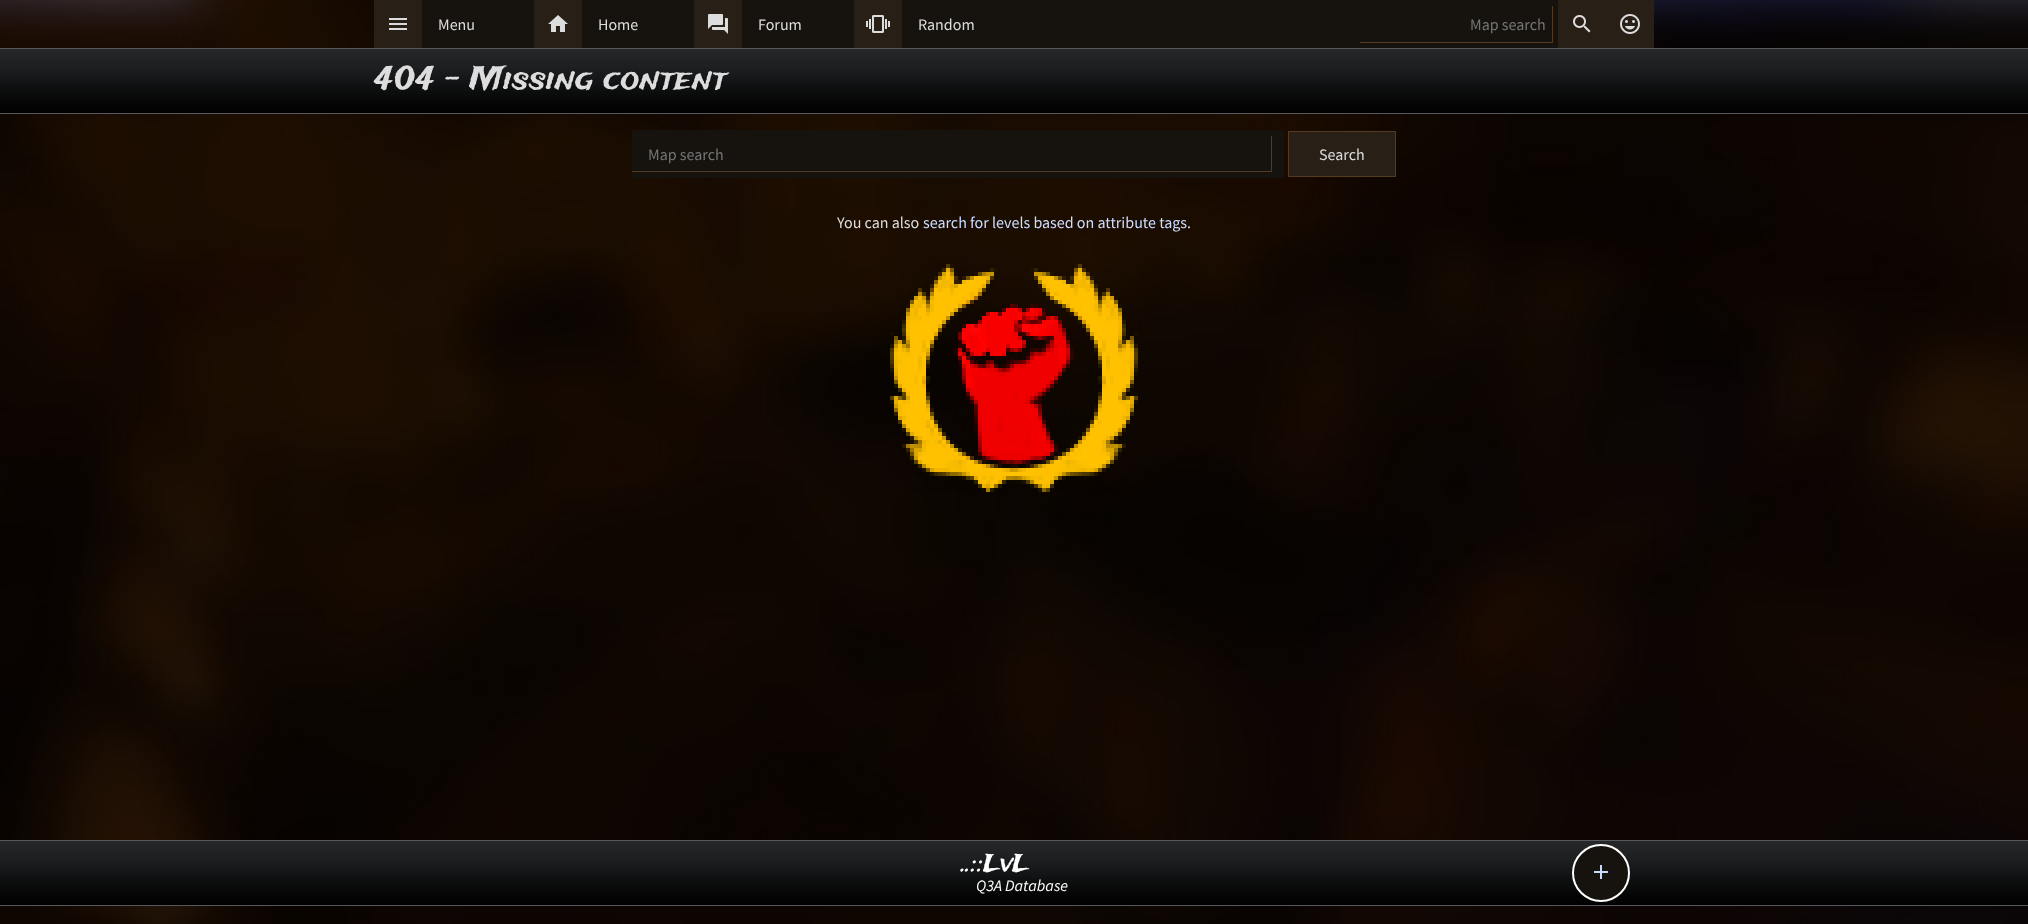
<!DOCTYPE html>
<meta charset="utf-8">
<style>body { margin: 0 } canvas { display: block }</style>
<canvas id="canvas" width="2028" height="924"></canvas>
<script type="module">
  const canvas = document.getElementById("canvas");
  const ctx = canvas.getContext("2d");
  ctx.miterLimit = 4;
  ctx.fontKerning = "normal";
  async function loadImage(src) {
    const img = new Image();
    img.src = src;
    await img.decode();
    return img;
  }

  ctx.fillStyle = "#ffffff";
  ctx.fillRect(0, 0, 2028, 924);
  ctx.drawImage(await loadImage("img1.png"), 0, 0, 2028, 924);
  ctx.fillStyle = "#16130f";
  ctx.fillRect(422, 0, 1136, 48);
  ctx.fillStyle = "#282016";
  ctx.fillRect(374, 0, 48, 48);
  ctx.drawImage(await loadImage("img2.png"), 389, 18, 18, 12);
  ctx.font = "16px Source Sans Pro";
  ctx.fillStyle = "#dddddd";
  ctx.fillText("Menu", 438, 30);
  ctx.fillStyle = "#282016";
  ctx.fillRect(534, 0, 48, 48);
  ctx.drawImage(await loadImage("img3.png"), 548, 15, 20, 17);
  ctx.fillStyle = "#dddddd";
  ctx.fillText("Home", 598, 30);
  ctx.fillStyle = "#282016";
  ctx.fillRect(694, 0, 48, 48);
  ctx.drawImage(await loadImage("img4.png"), 708, 14, 20, 20);
  ctx.fillStyle = "#dddddd";
  ctx.fillText("Forum", 758, 30);
  ctx.fillStyle = "#282016";
  ctx.fillRect(854, 0, 48, 48);
  ctx.drawImage(await loadImage("img5.png"), 866, 15, 24, 18);
  ctx.fillStyle = "#dddddd";
  ctx.fillText("Random", 918, 30);
  ctx.fillStyle = "#543c22";
  ctx.fillRect(1552, 6, 1, 37);
  ctx.fillRect(1360, 42, 193, 1);
  ctx.fillStyle = "#757575";
  ctx.fillText("Map search", 1470, 30);
  ctx.fillStyle = "#282016";
  ctx.fillRect(1558, 0, 96, 48);
  ctx.drawImage(await loadImage("img6.png"), 1573, 15, 18, 18);
  ctx.drawImage(await loadImage("img7.png"), 1620, 14, 20, 20);
  ctx.drawImage(await loadImage("img8.png"), 0, 49, 2028, 64);
  ctx.fillStyle = "#56585d";
  ctx.fillRect(0, 48, 2028, 1);
  ctx.fillRect(0, 113, 2028, 1);
  ctx.font = "32px Trade Winds";
  ctx.fillStyle = "#dddddd";
  ctx.fillText("404 - Missing content", 374, 89);
  ctx.fillStyle = "#16130f";
  ctx.fillRect(632, 130, 652, 48);
  ctx.fillStyle = "#543c22";
  ctx.fillRect(1271, 136, 1, 36);
  ctx.fillRect(632, 171, 640, 1);
  ctx.font = "16px Source Sans Pro";
  ctx.fillStyle = "#757575";
  ctx.fillText("Map search", 648, 160);
  ctx.fillStyle = "#282016";
  ctx.beginPath();
  ctx.rect(1288.5, 131.5, 107, 45);
  ctx.fill();
  ctx.strokeStyle = "#543c22";
  ctx.stroke();
  ctx.fillStyle = "#dddddd";
  ctx.fillText("Search", 1319, 160);
  ctx.fillText("You can also", 837, 228);
  ctx.fillStyle = "#ccddff";
  ctx.fillText("search for levels based on attribute tags", 923, 228);
  ctx.fillStyle = "#dddddd";
  ctx.fillText(".", 1187, 228);
  ctx.drawImage(await loadImage("img9.png"), 890, 264, 248, 228);
  ctx.drawImage(await loadImage("img8.png"), 0, 841, 2028, 64);
  ctx.fillStyle = "#16130f";
  ctx.beginPath();
  ctx.arc(1601, 873, 28, 0, Math.PI * 2);
  ctx.fill();
  ctx.strokeStyle = "#ffffff";
  ctx.lineWidth = 2;
  ctx.stroke();
  ctx.drawImage(await loadImage("img10.png"), 1594, 865, 14, 14);
  ctx.fillStyle = "#56585d";
  ctx.fillRect(0, 840, 2028, 1);
  ctx.fillRect(0, 905, 2028, 1);
  ctx.font = "24px Trade Winds";
  ctx.fillStyle = "#ffffff";
  ctx.fillText("..::LvL", 962, 871);
  ctx.font = "italic 16px Source Sans Pro";
  ctx.fillText("Q3A Database", 976, 891);
</script>
